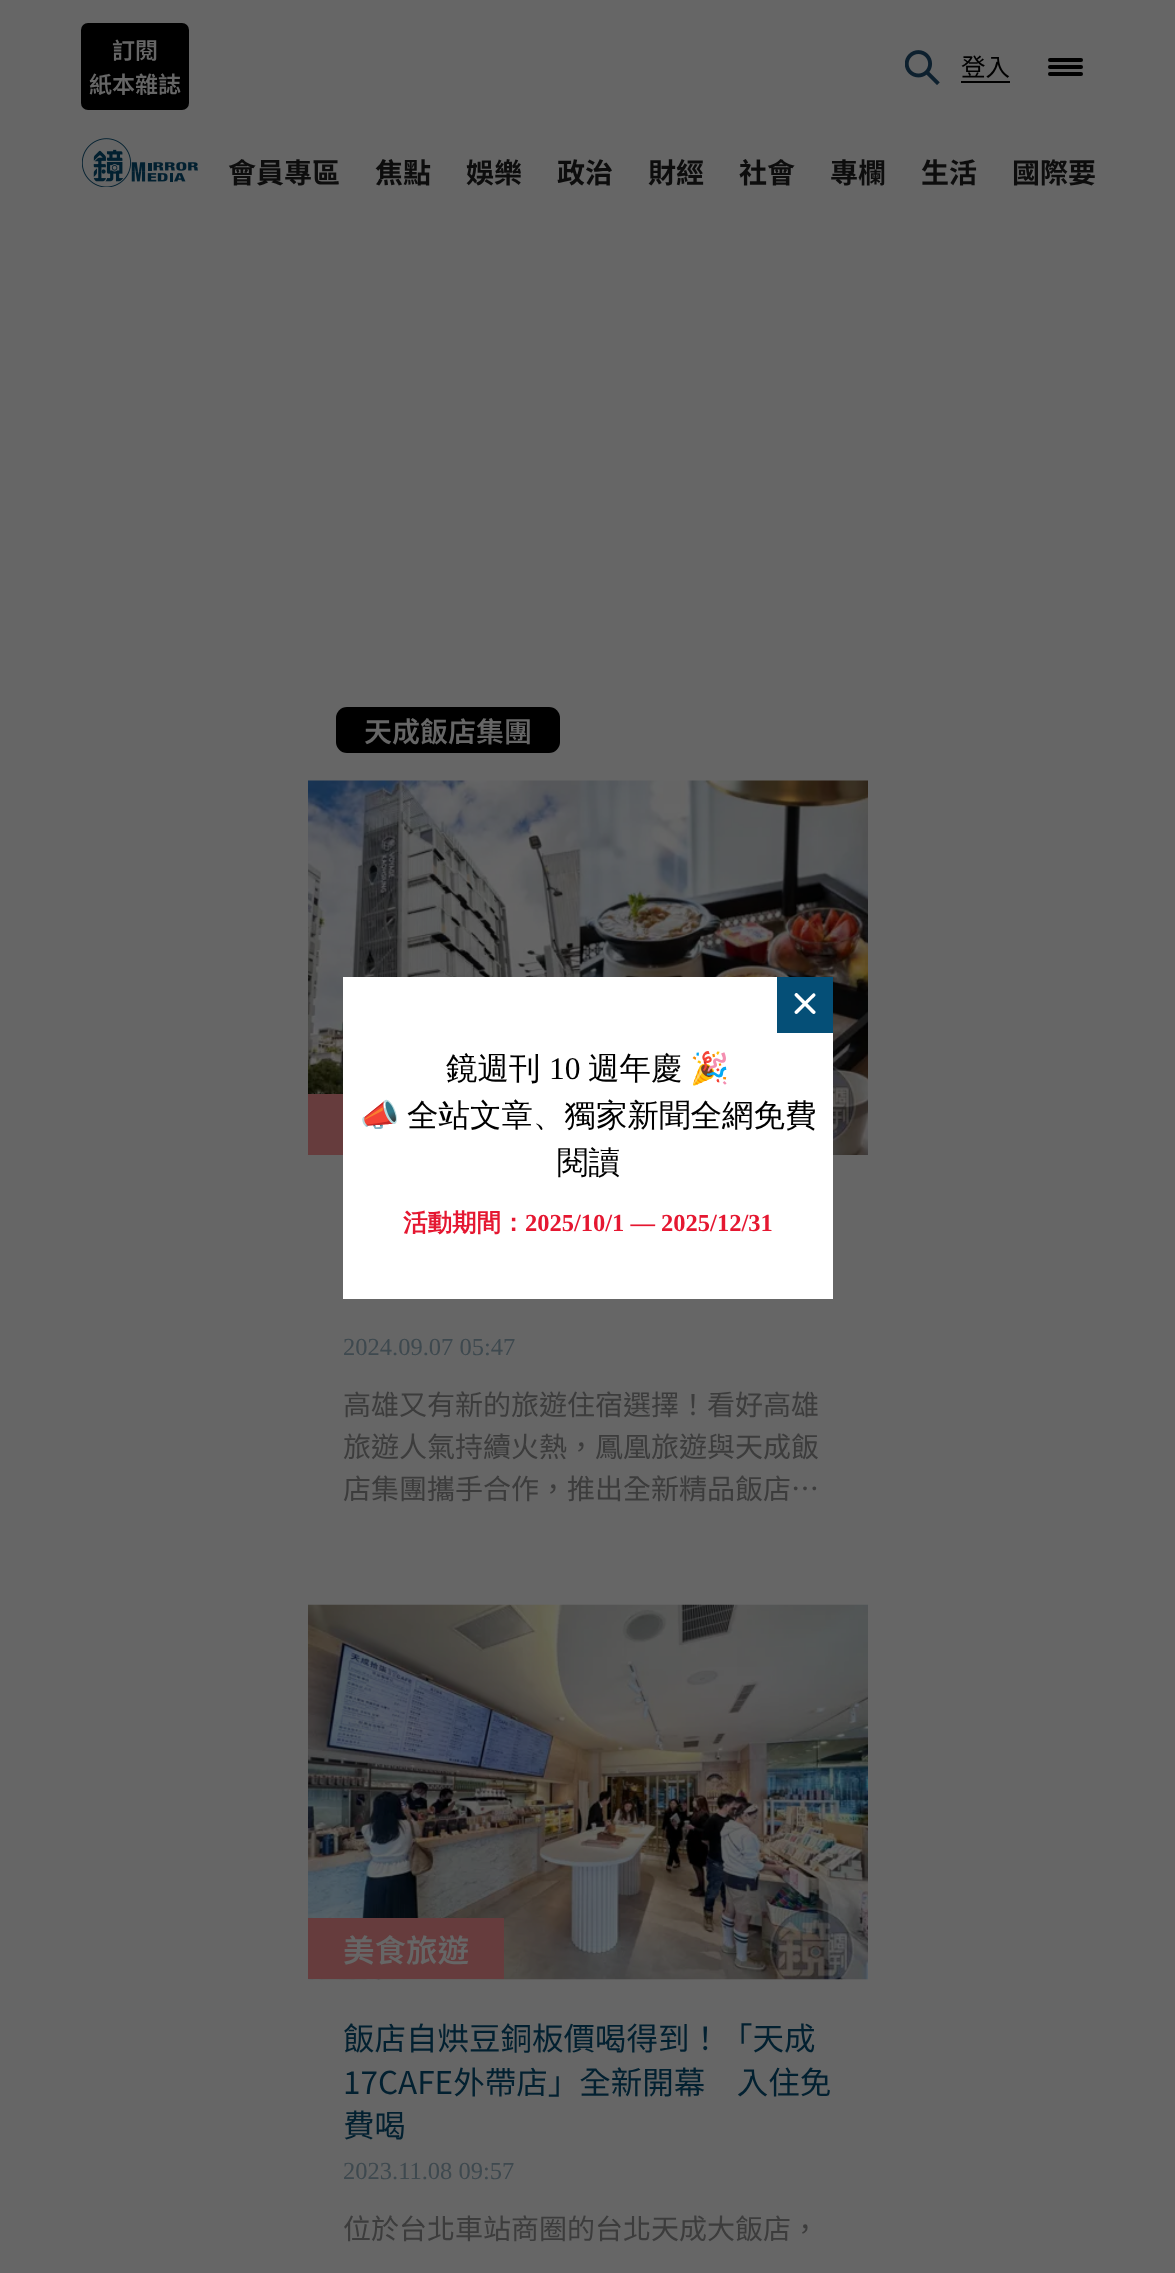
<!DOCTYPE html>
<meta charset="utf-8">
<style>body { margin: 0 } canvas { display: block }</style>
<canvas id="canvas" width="1175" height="2273"></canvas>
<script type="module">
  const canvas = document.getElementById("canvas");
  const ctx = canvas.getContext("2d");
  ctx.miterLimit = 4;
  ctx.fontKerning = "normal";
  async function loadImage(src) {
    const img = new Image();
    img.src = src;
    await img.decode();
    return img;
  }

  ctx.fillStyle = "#666666";
  ctx.fillRect(0, 0, 1175, 2273);
  ctx.fillStyle = "#000000";
  ctx.beginPath();
  ctx.roundRect(81, 23, 108, 87, 7);
  ctx.fill();
  ctx.font = "600 23px Noto Sans TC";
  ctx.fillStyle = "#666666";
  ctx.fillText("訂閱", 112, 59);
  ctx.fillText("紙本雜誌", 89, 93);
  ctx.drawImage(await loadImage("img1.png"), 905, 50, 35, 35);
  ctx.font = "24.5px Noto Sans TC";
  ctx.fillStyle = "#000000";
  ctx.fillText("登入", 961, 76);
  ctx.fillRect(961, 81, 49, 2);
  ctx.beginPath();
  ctx.roundRect(1048, 58, 35, 4, 2);
  ctx.fill();
  ctx.beginPath();
  ctx.roundRect(1048, 65, 35, 4, 2);
  ctx.fill();
  ctx.beginPath();
  ctx.roundRect(1048, 72, 35, 4, 2);
  ctx.fill();
  ctx.drawImage(await loadImage("img2.png"), 82, 138, 116, 49);
  ctx.font = "bold 28px Noto Sans TC";
  ctx.fillStyle = "#0d0d0d";
  ctx.fillText("會員專區", 228, 183);
  ctx.fillText("焦點", 375, 183);
  ctx.fillText("娛樂", 466, 183);
  ctx.fillText("政治", 557, 183);
  ctx.fillText("財經", 648, 183);
  ctx.fillText("社會", 739, 183);
  ctx.fillText("專欄", 830, 183);
  ctx.fillText("生活", 921, 183);
  ctx.fillText("國際要", 1012, 183);
  ctx.fillStyle = "#000000";
  ctx.beginPath();
  ctx.roundRect(336, 707, 224, 46, 11);
  ctx.fill();
  ctx.font = "600 28px Noto Sans TC";
  ctx.fillStyle = "#666666";
  ctx.fillText("天成飯店集團", 364, 742);
  ctx.drawImage(await loadImage("img3.png"), 308, 780, 560, 375);
  ctx.fillStyle = "#663c3d";
  ctx.fillRect(308, 1094, 35, 61);
  ctx.font = "24.5px Liberation Serif";
  ctx.fillStyle = "#3e494f";
  ctx.fillText("2024.09.07 05:47", 343, 1355);
  ctx.font = "28px Noto Sans TC";
  ctx.fillStyle = "#3c3c3c";
  ctx.fillText("高雄又有新的旅遊住宿選擇！看好高雄", 343, 1415);
  ctx.fillText("旅遊人氣持續火熱，鳳凰旅遊與天成飯", 343, 1457);
  ctx.fillText("店集團攜手合作，推出全新精品飯店…", 343, 1499);
  ctx.drawImage(await loadImage("img4.png"), 308, 1604, 560, 376);
  ctx.fillStyle = "#663c3d";
  ctx.fillRect(308, 1918, 196, 61);
  ctx.font = "600 31.5px Noto Sans TC";
  ctx.fillStyle = "#666666";
  ctx.fillText("美食旅遊", 343, 1962);
  ctx.font = "31.5px Noto Sans TC";
  ctx.fillStyle = "#022030";
  ctx.fillText("飯店自烘豆銅板價喝得到！「天成", 343, 2050);
  ctx.fillText("17CAFE外帶店」全新開幕　入住免", 343, 2094);
  ctx.fillText("費喝", 343, 2137);
  ctx.font = "24.5px Liberation Serif";
  ctx.fillStyle = "#3e494f";
  ctx.fillText("2023.11.08 09:57", 343, 2179);
  ctx.font = "28px Noto Sans TC";
  ctx.fillStyle = "#3c3c3c";
  ctx.fillText("位於台北車站商圈的台北天成大飯店，", 343, 2239);
  ctx.fillStyle = "#ffffff";
  ctx.fillRect(343, 977, 490, 322);
  ctx.fillStyle = "#054f77";
  ctx.fillRect(777, 977, 56, 56);
  ctx.fillStyle = "#ffffff";
  ctx.beginPath();
  ctx.moveTo(797.5, 993.5);
  ctx.lineTo(815.5, 1011.5);
  ctx.bezierCurveTo(816, 1013, 814.5, 1014.5, 813.5, 1014);
  ctx.bezierCurveTo(812, 1013.5, 809.5, 1010.5, 809.5, 1010.5);
  ctx.lineTo(795, 996);
  ctx.bezierCurveTo(793.5, 994.5, 796, 992, 797.5, 993.5);
  ctx.closePath();
  ctx.fill();
  ctx.beginPath();
  ctx.moveTo(795, 1011);
  ctx.lineTo(813, 993.5);
  ctx.bezierCurveTo(814.5, 993, 815.5, 994, 815.5, 995.5);
  ctx.bezierCurveTo(815, 996.5, 812, 999, 812, 999);
  ctx.lineTo(797.5, 1013.5);
  ctx.bezierCurveTo(796, 1015, 793.5, 1012.5, 795, 1011);
  ctx.closePath();
  ctx.fill();
  ctx.font = "500 31.5px WenQuanYi Zen Hei";
  ctx.fillStyle = "#000000";
  ctx.fillText("鏡週刊", 446, 1079);
  ctx.font = "31.5px Liberation Serif";
  ctx.fillText("10", 549, 1079);
  ctx.font = "500 31.5px WenQuanYi Zen Hei";
  ctx.fillText("週年慶", 588, 1079);
  ctx.font = "31.5px Noto Color Emoji";
  ctx.fillText("🎉", 690, 1079);
  ctx.fillText("📣", 360, 1126);
  ctx.font = "500 31.5px WenQuanYi Zen Hei";
  ctx.fillText("全站文章、獨家新聞全網免費", 407, 1126);
  ctx.fillText("閱讀", 557, 1173);
  ctx.font = "bold 24.5px WenQuanYi Zen Hei";
  ctx.fillStyle = "#e51731";
  ctx.fillText("活動期間：", 403, 1231);
  ctx.font = "bold 24.5px Liberation Serif";
  ctx.fillText("2025/10/1 — 2025/12/31", 525, 1231);
</script>
